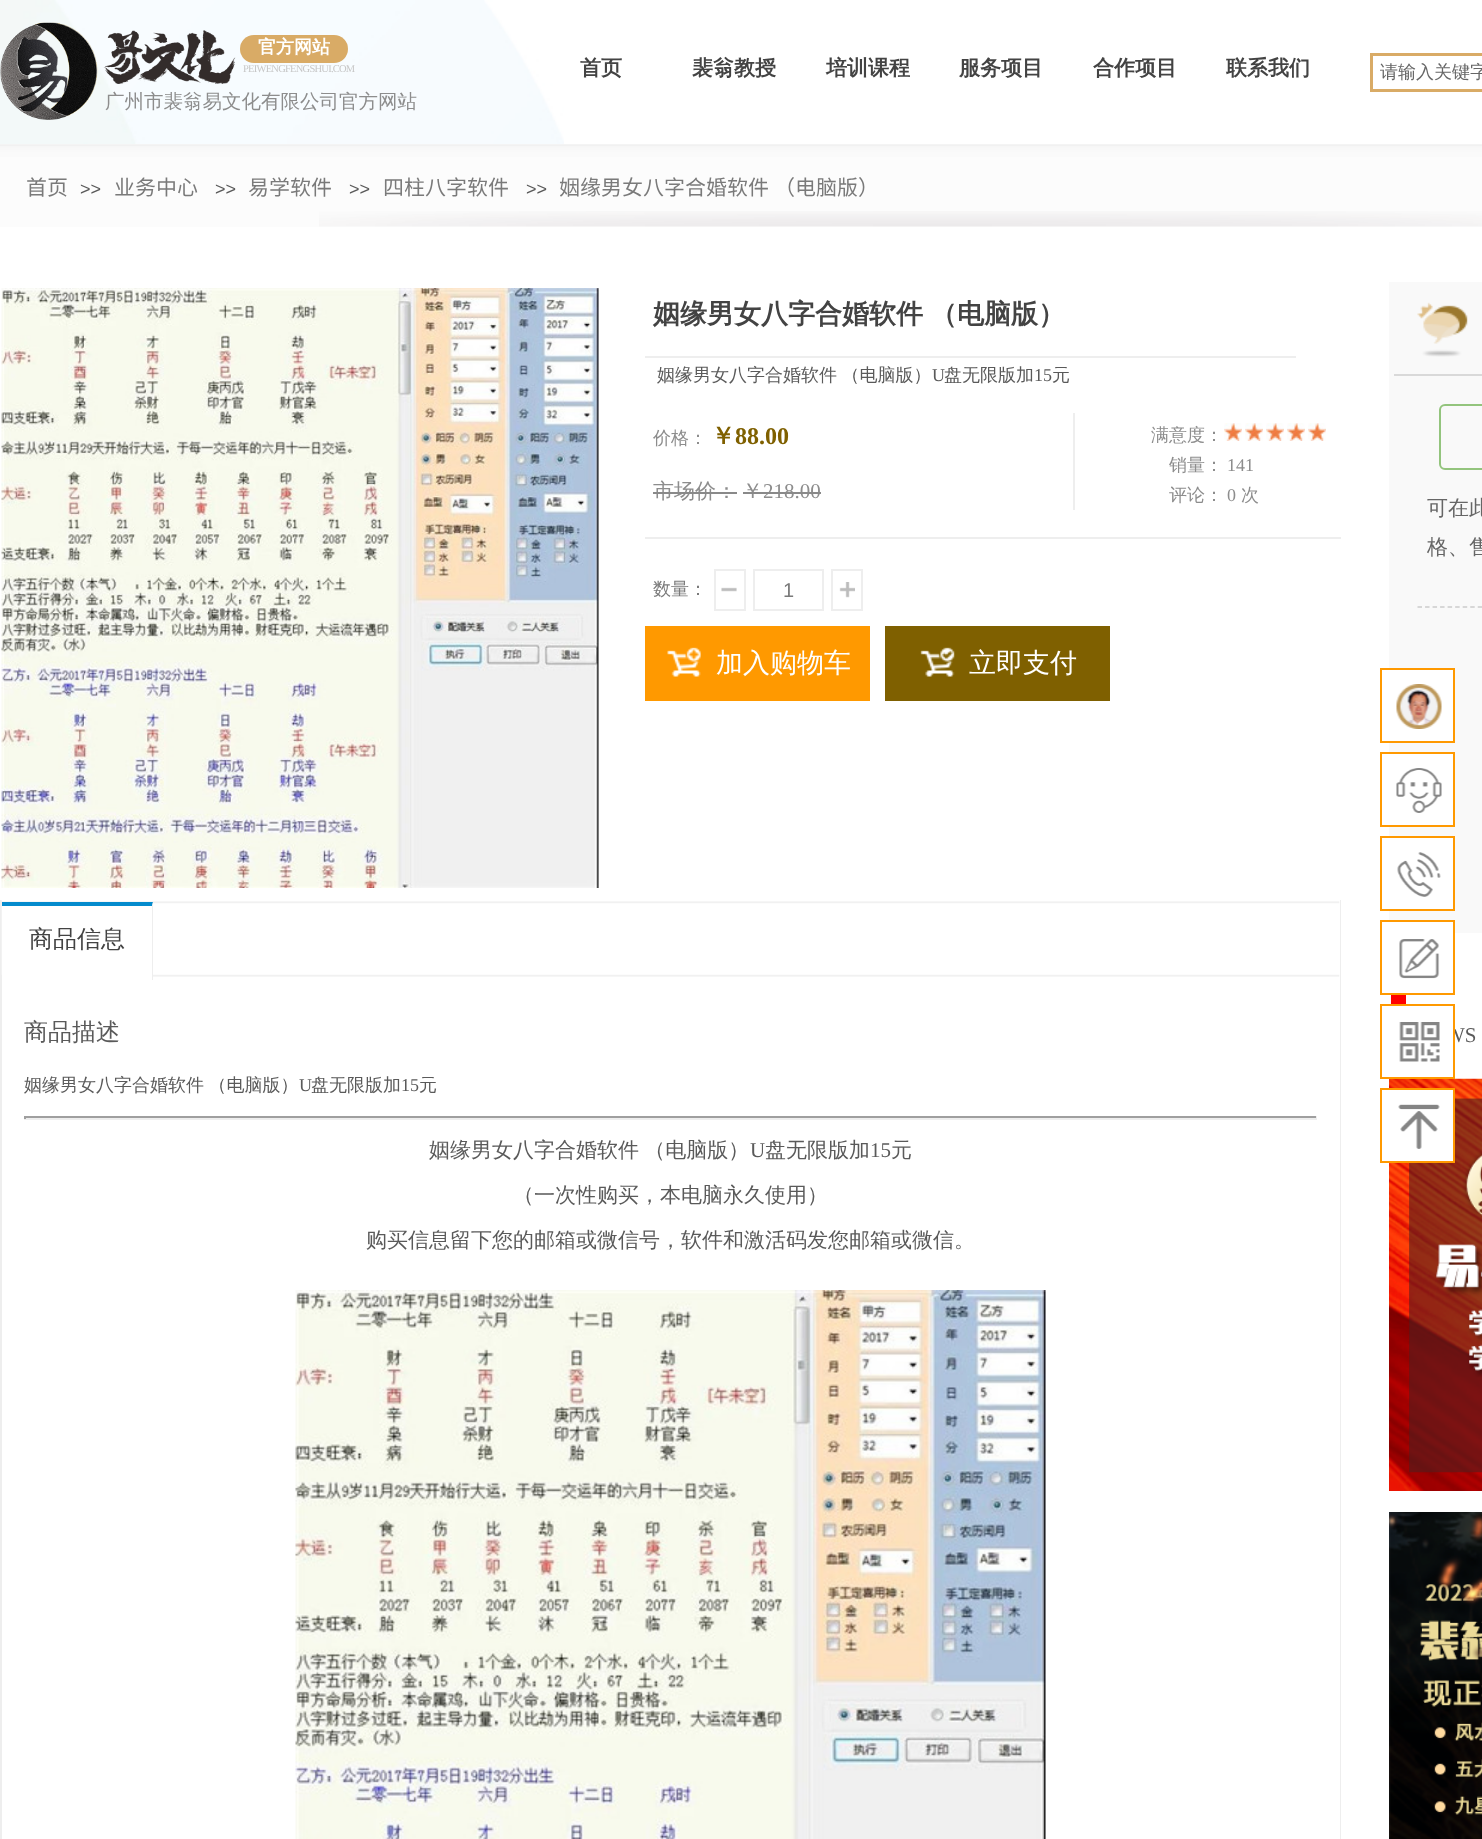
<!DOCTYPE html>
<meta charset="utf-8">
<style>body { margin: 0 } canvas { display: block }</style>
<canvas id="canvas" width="1482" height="1839"></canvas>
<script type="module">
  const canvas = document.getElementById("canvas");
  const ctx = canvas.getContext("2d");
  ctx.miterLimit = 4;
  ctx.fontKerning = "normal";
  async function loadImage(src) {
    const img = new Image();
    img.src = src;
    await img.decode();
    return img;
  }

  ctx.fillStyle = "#ffffff";
  ctx.fillRect(0, 0, 1482, 1839);
  ctx.drawImage(await loadImage("img1.png"), 0, 0, 564, 144);
  ctx.drawImage(await loadImage("img2.png"), 0, 22, 98, 98);
  ctx.drawImage(await loadImage("img3.png"), 103, 30, 133, 54);
  ctx.fillStyle = "#d9ab66";
  ctx.beginPath();
  ctx.roundRect(240, 35, 108, 28, 14);
  ctx.fill();
  ctx.font = "bold 18px WenQuanYi Zen Hei";
  ctx.fillStyle = "#ffffff";
  ctx.fillText("官方网站", 258, 53);
  ctx.letterSpacing = "-0.75px";
  ctx.font = "10.5px Liberation Serif";
  ctx.fillStyle = "#c7c7c7";
  ctx.fillText("PEIWENGFENGSHUI.COM", 243, 72);
  ctx.letterSpacing = "0px";
  ctx.font = "bold 21px WenQuanYi Zen Hei";
  ctx.fillStyle = "#434343";
  ctx.fillText("首页", 580, 75);
  ctx.fillText("裴翁教授", 692, 75);
  ctx.fillText("培训课程", 826, 75);
  ctx.fillText("服务项目", 959, 75);
  ctx.fillText("合作项目", 1093, 75);
  ctx.fillText("联系我们", 1226, 75);
  ctx.strokeStyle = "#d9ab66";
  ctx.lineWidth = 3;
  ctx.strokeRect(1371.5, 54.5, 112, 36);
  ctx.font = "500 18px WenQuanYi Zen Hei";
  ctx.fillStyle = "#666666";
  ctx.fillText("请输入关键字", 1380, 78);
  ctx.font = "500 19.5px WenQuanYi Zen Hei";
  ctx.fillStyle = "#8d8d8d";
  ctx.fillText("广州市裴翁易文化有限公司官方网站", 105, 108);
  ctx.drawImage(await loadImage("img4.png"), 0, 144, 1482, 13);
  ctx.fillStyle = "rgba(249, 249, 249, 0.56)";
  ctx.fillRect(0, 146, 1482, 81);
  ctx.drawImage(await loadImage("img5.png"), 319, 211, 1163, 16);
  ctx.font = "21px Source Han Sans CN";
  ctx.fillStyle = "#7a7a7a";
  ctx.fillText("首页", 26, 195);
  ctx.font = "18px Liberation Sans";
  ctx.fillStyle = "#5a5a5a";
  ctx.fillText(">>", 80, 195);
  ctx.font = "21px Source Han Sans CN";
  ctx.fillStyle = "#7a7a7a";
  ctx.fillText("业务中心", 114, 195);
  ctx.font = "18px Liberation Sans";
  ctx.fillStyle = "#5a5a5a";
  ctx.fillText(">>", 215, 195);
  ctx.font = "21px Source Han Sans CN";
  ctx.fillStyle = "#7a7a7a";
  ctx.fillText("易学软件", 248, 195);
  ctx.font = "18px Liberation Sans";
  ctx.fillStyle = "#5a5a5a";
  ctx.fillText(">>", 349, 195);
  ctx.font = "21px Source Han Sans CN";
  ctx.fillStyle = "#7a7a7a";
  ctx.fillText("四柱八字软件", 383, 195);
  ctx.font = "18px Liberation Sans";
  ctx.fillStyle = "#5a5a5a";
  ctx.fillText(">>", 526, 195);
  ctx.font = "21px Source Han Sans CN";
  ctx.fillStyle = "#7a7a7a";
  ctx.fillText("姻缘男女八字合婚软件", 559, 195);
  ctx.fillText("（电脑版）", 774, 195);
  ctx.drawImage(await loadImage("img6.png"), 1, 288, 598, 600);
  ctx.fillStyle = "#eeeeee";
  ctx.fillRect(645, 356, 651, 2);
  ctx.wordSpacing = "-1px";
  ctx.font = "bold 27px WenQuanYi Zen Hei";
  ctx.fillStyle = "#434343";
  ctx.fillText("姻缘男女八字合婚软件 （电脑版）", 653, 323);
  ctx.font = "500 18px WenQuanYi Zen Hei";
  ctx.fillStyle = "#5a5a5a";
  ctx.fillText("姻缘男女八字合婚软件 （电脑版）", 657, 381);
  ctx.wordSpacing = "0px";
  ctx.font = "18px Liberation Serif";
  ctx.fillText("U", 932, 381);
  ctx.font = "500 18px WenQuanYi Zen Hei";
  ctx.fillText("盘无限版加", 944, 381);
  ctx.font = "18px Liberation Serif";
  ctx.fillText("15", 1034, 381);
  ctx.font = "500 18px WenQuanYi Zen Hei";
  ctx.fillText("元", 1052, 381);
  ctx.fillStyle = "#eeeeee";
  ctx.fillRect(645, 537, 696, 2);
  ctx.fillStyle = "#8d8d8d";
  ctx.fillText("价格：", 653, 444);
  ctx.font = "bold 24px WenQuanYi Zen Hei";
  ctx.fillStyle = "#7f6000";
  ctx.fillText("￥", 711, 444);
  ctx.font = "bold 24px Liberation Serif";
  ctx.fillText("88.00", 735, 444);
  ctx.font = "500 21px WenQuanYi Zen Hei";
  ctx.fillStyle = "#8d8d8d";
  ctx.fillText("市场价：", 653, 498);
  ctx.fillStyle = "#898989";
  ctx.fillRect(653, 492, 84, 2);
  ctx.fillStyle = "#8d8d8d";
  ctx.fillText("￥", 742, 498);
  ctx.font = "21px Liberation Serif";
  ctx.fillText("218.00", 763, 498);
  ctx.fillStyle = "#898989";
  ctx.fillRect(743, 492, 78, 2);
  ctx.fillStyle = "#eeeeee";
  ctx.fillRect(1073, 413, 2, 97);
  ctx.font = "500 18px WenQuanYi Zen Hei";
  ctx.fillStyle = "#8d8d8d";
  ctx.fillText("满意度：", 1151, 441);
  ctx.drawImage(await loadImage("img7.png"), 1224, 423, 18, 18);
  ctx.drawImage(await loadImage("img7.png"), 1245, 423, 18, 18);
  ctx.drawImage(await loadImage("img8.png"), 1266, 423, 18, 18);
  ctx.drawImage(await loadImage("img9.png"), 1287, 423, 18, 18);
  ctx.drawImage(await loadImage("img10.png"), 1308, 423, 18, 18);
  ctx.fillText("销量：", 1169, 471);
  ctx.font = "18px Liberation Serif";
  ctx.fillText("141", 1227, 471);
  ctx.font = "500 18px WenQuanYi Zen Hei";
  ctx.fillText("评论：", 1169, 501);
  ctx.font = "18px Liberation Serif";
  ctx.fillText("0", 1227, 501);
  ctx.font = "500 18px WenQuanYi Zen Hei";
  ctx.fillText("次", 1241, 501);
  ctx.fillStyle = "#7a7a7a";
  ctx.fillText("数量：", 653, 595);
  ctx.drawImage(await loadImage("img11.png"), 721, 587, 16, 5);
  ctx.strokeStyle = "#eeeeee";
  ctx.lineWidth = 2;
  ctx.strokeRect(715, 570, 30, 40);
  ctx.strokeRect(754, 570, 69, 40);
  ctx.font = "20px Liberation Sans";
  ctx.fillText("1", 783, 597);
  ctx.drawImage(await loadImage("img12.png"), 839, 582, 16, 16);
  ctx.strokeRect(832, 570, 30, 40);
  ctx.fillStyle = "#ff9900";
  ctx.fillRect(645, 626, 225, 75);
  ctx.drawImage(await loadImage("img13.png"), 667, 647, 34, 30);
  ctx.font = "500 27px WenQuanYi Zen Hei";
  ctx.fillStyle = "#ffffff";
  ctx.fillText("加入购物车", 716, 672);
  ctx.fillStyle = "#7f6000";
  ctx.fillRect(885, 626, 225, 75);
  ctx.drawImage(await loadImage("img14.png"), 920, 647, 35, 30);
  ctx.fillStyle = "#ffffff";
  ctx.fillText("立即支付", 969, 672);
  ctx.fillStyle = "#eeeeee";
  ctx.fillRect(1340, 900, 1, 939);
  ctx.fillRect(0, 900, 2, 939);
  ctx.drawImage(await loadImage("img15.png"), 1, 900, 1339, 77);
  ctx.fillStyle = "#ffffff";
  ctx.fillRect(2, 902, 151, 75);
  ctx.fillStyle = "#048bcd";
  ctx.beginPath();
  ctx.moveTo(2, 902);
  ctx.lineTo(153, 902);
  ctx.lineTo(152, 906);
  ctx.lineTo(2, 906);
  ctx.closePath();
  ctx.fill();
  ctx.save();
  ctx.beginPath();
  ctx.rect(2, 900, 1338, 80);
  ctx.clip();
  ctx.fillStyle = "#eeeeee";
  ctx.beginPath();
  ctx.moveTo(153, 902);
  ctx.lineTo(153, 984);
  ctx.lineTo(152, 984);
  ctx.lineTo(152, 906);
  ctx.closePath();
  ctx.fill();
  ctx.restore();
  ctx.font = "500 24px WenQuanYi Zen Hei";
  ctx.fillStyle = "#434343";
  ctx.fillText("商品信息", 29, 947);
  ctx.fillStyle = "#5a5a5a";
  ctx.fillText("商品描述", 24, 1040);
  ctx.wordSpacing = "-1px";
  ctx.font = "500 18px WenQuanYi Zen Hei";
  ctx.fillText("姻缘男女八字合婚软件 （电脑版）", 24, 1091);
  ctx.wordSpacing = "0px";
  ctx.font = "18px Liberation Serif";
  ctx.fillText("U", 299, 1091);
  ctx.font = "500 18px WenQuanYi Zen Hei";
  ctx.fillText("盘无限版加", 311, 1091);
  ctx.font = "18px Liberation Serif";
  ctx.fillText("15", 401, 1091);
  ctx.font = "500 18px WenQuanYi Zen Hei";
  ctx.fillText("元", 419, 1091);
  ctx.fillStyle = "#9f9f9f";
  ctx.fillRect(24, 1116, 1293, 2);
  ctx.fillStyle = "#eeeeee";
  ctx.fillRect(1316, 1116, 1, 3);
  ctx.fillRect(24, 1118, 1293, 2);
  ctx.fillStyle = "#9f9f9f";
  ctx.fillRect(24, 1116, 2, 3);
  ctx.wordSpacing = "-1px";
  ctx.font = "500 21px WenQuanYi Zen Hei";
  ctx.fillStyle = "#5a5a5a";
  ctx.fillText("姻缘男女八字合婚软件 （电脑版）", 429, 1157);
  ctx.wordSpacing = "0px";
  ctx.font = "21px Liberation Serif";
  ctx.fillText("U", 750, 1157);
  ctx.font = "500 21px WenQuanYi Zen Hei";
  ctx.fillText("盘无限版加", 765, 1157);
  ctx.font = "21px Liberation Serif";
  ctx.fillText("15", 870, 1157);
  ctx.font = "500 21px WenQuanYi Zen Hei";
  ctx.fillText("元", 891, 1157);
  ctx.fillText("（一次性购买，本电脑永久使用）", 513, 1202);
  ctx.fillText("购买信息留下您的邮箱或微信号，软件和激活码发您邮箱或微信。", 366, 1247);
  ctx.drawImage(await loadImage("img16.png"), 295, 1290, 751, 549);
  ctx.fillStyle = "#f9f9f9";
  ctx.fillRect(1389, 282, 93, 651);
  ctx.drawImage(await loadImage("img17.png"), 1417, 302, 51, 55);
  ctx.fillStyle = "#d9d9d9";
  ctx.fillRect(1394, 374, 88, 2);
  ctx.beginPath();
  ctx.roundRect(1440, 405, 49, 64, 5);
  ctx.strokeStyle = "#93c47d";
  ctx.stroke();
  ctx.fillStyle = "#666666";
  ctx.fillText("可在此", 1427, 515);
  ctx.fillText("格、售", 1427, 554);
  ctx.beginPath();
  ctx.moveTo(1417.5, 607);
  ctx.lineTo(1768.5, 607);
  ctx.strokeStyle = "#cccccc";
  ctx.lineWidth = 1.5;
  ctx.setLineDash([4.5, 3.03]);
  ctx.stroke();
  ctx.fillStyle = "#ff0000";
  ctx.fillRect(1391, 995, 15, 9);
  ctx.font = "21px Liberation Serif";
  ctx.fillStyle = "#5a5a5a";
  ctx.fillText("WS", 1445, 1042);
  ctx.drawImage(await loadImage("img18.png"), 1389, 1078, 93, 413);
  ctx.drawImage(await loadImage("img19.png"), 1389, 1512, 93, 327);
  ctx.fillStyle = "#ffffff";
  ctx.fillRect(1389, 670, 64, 71);
  ctx.strokeStyle = "#ff9900";
  ctx.lineWidth = 2;
  ctx.setLineDash([]);
  ctx.strokeRect(1381, 669, 73, 73);
  ctx.drawImage(await loadImage("img20.png"), 1396, 684, 46, 45);
  ctx.fillRect(1389, 754, 64, 71);
  ctx.strokeRect(1381, 753, 73, 73);
  ctx.drawImage(await loadImage("img21.png"), 1396, 768, 46, 45);
  ctx.fillRect(1389, 838, 64, 71);
  ctx.strokeRect(1381, 837, 73, 73);
  ctx.drawImage(await loadImage("img22.png"), 1397, 852, 44, 45);
  ctx.fillRect(1389, 922, 64, 11);
  ctx.strokeRect(1381, 921, 73, 73);
  ctx.drawImage(await loadImage("img23.png"), 1399, 939, 41, 40);
  ctx.fillRect(1445, 1028, 8, 15);
  ctx.strokeRect(1381, 1005, 73, 73);
  ctx.drawImage(await loadImage("img24.png"), 1399, 1022, 41, 40);
  ctx.fillRect(1389, 1090, 64, 71);
  ctx.strokeRect(1381, 1089, 73, 73);
  ctx.drawImage(await loadImage("img25.png"), 1398, 1104, 42, 45);
</script>
